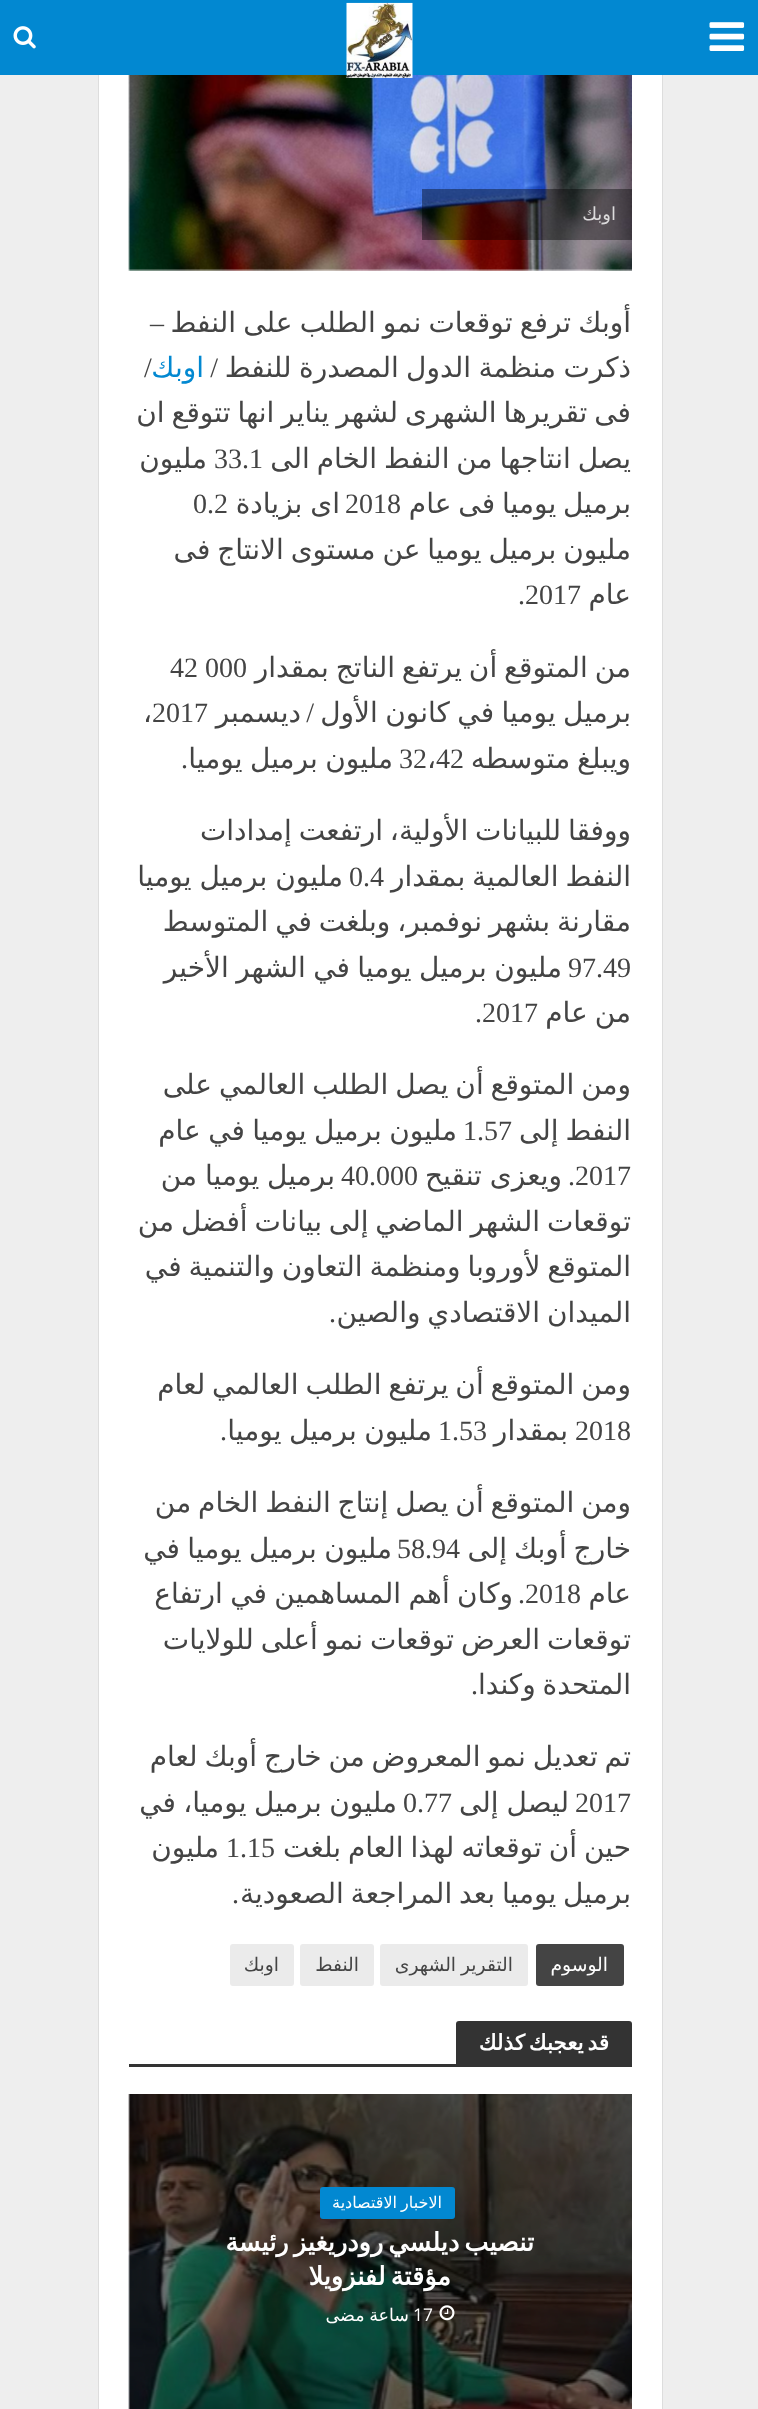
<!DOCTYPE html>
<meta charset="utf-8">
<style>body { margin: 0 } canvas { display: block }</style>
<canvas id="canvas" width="758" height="2409"></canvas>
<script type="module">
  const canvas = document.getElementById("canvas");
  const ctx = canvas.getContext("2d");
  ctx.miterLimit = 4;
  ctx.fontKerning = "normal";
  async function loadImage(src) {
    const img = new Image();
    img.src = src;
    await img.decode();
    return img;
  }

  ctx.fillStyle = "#eeeeee";
  ctx.fillRect(0, 0, 758, 2409);
  ctx.strokeStyle = "#dddddd";
  ctx.lineWidth = 2;
  ctx.strokeRect(99, -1, 563, 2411);
  ctx.fillStyle = "#0288d1";
  ctx.fillRect(0, 0, 758, 75);
  ctx.drawImage(await loadImage("img1.png"), 709, 22, 36, 29);
  ctx.fillStyle = "#ffffff";
  ctx.fillRect(99, 75, 563, 2334);
  ctx.fillStyle = "#f3f3f3";
  ctx.fillRect(129, 75, 503, 195);
  ctx.drawImage(await loadImage("img4.png"), 128, 75, 504, 196);
  ctx.drawImage(await loadImage("img2.png"), 346, 2, 67, 76);
  ctx.drawImage(await loadImage("img3.png"), 13, 26, 23, 23);
  ctx.fillStyle = "rgba(0, 0, 0, 0.4)";
  ctx.fillRect(422, 189, 210, 51);
  ctx.direction = "rtl";
  ctx.font = "18px DejaVu Sans";
  ctx.fillStyle = "#dcdbdc";
  ctx.fillText("اوبك", 616, 220);
  ctx.wordSpacing = "-1.75px";
  ctx.font = "28px DejaVu Sans";
  ctx.fillStyle = "#444444";
  ctx.fillText("أوبك ترفع توقعات نمو الطلب على النفط", 631, 332);
  ctx.wordSpacing = "0px";
  ctx.font = "28px Liberation Serif";
  ctx.fillText("–", 164, 332);
  ctx.wordSpacing = "-1.5px";
  ctx.font = "28px DejaVu Sans";
  ctx.fillText("ذكرت منظمة الدول المصدرة للنفط", 631, 377);
  ctx.wordSpacing = "0px";
  ctx.font = "28px Liberation Serif";
  ctx.fillText("/", 218, 377);
  ctx.font = "28px DejaVu Sans";
  ctx.fillStyle = "#0288d1";
  ctx.fillText("اوبك", 204, 377);
  ctx.direction = "ltr";
  ctx.font = "28px Liberation Serif";
  ctx.fillStyle = "#444444";
  ctx.fillText("/", 144, 377);
  ctx.wordSpacing = "-2px";
  ctx.direction = "rtl";
  ctx.font = "28px DejaVu Sans";
  ctx.fillText("فى تقريرها الشهرى لشهر يناير انها تتوقع ان", 631, 422);
  ctx.fillText("يصل انتاجها من النفط الخام الى", 631, 468);
  ctx.wordSpacing = "0px";
  ctx.direction = "ltr";
  ctx.font = "28px Liberation Serif";
  ctx.fillText("33.1", 214, 468);
  ctx.direction = "rtl";
  ctx.font = "28px DejaVu Sans";
  ctx.fillText("مليون", 207, 468);
  ctx.wordSpacing = "-2px";
  ctx.fillText("برميل يوميا فى عام", 631, 513);
  ctx.wordSpacing = "0px";
  ctx.direction = "ltr";
  ctx.font = "28px Liberation Serif";
  ctx.fillText("2018", 345, 513);
  ctx.wordSpacing = "-1px";
  ctx.direction = "rtl";
  ctx.font = "28px DejaVu Sans";
  ctx.fillText("اى بزيادة", 340, 513);
  ctx.wordSpacing = "0px";
  ctx.direction = "ltr";
  ctx.font = "28px Liberation Serif";
  ctx.fillText("0.2", 193, 513);
  ctx.wordSpacing = "-2px";
  ctx.direction = "rtl";
  ctx.font = "28px DejaVu Sans";
  ctx.fillText("مليون برميل يوميا عن مستوى الانتاج فى", 631, 559);
  ctx.wordSpacing = "0px";
  ctx.fillText("عام", 631, 604);
  ctx.direction = "ltr";
  ctx.font = "28px Liberation Serif";
  ctx.fillText(".2017", 518, 604);
  ctx.wordSpacing = "-2px";
  ctx.direction = "rtl";
  ctx.font = "28px DejaVu Sans";
  ctx.fillText("من المتوقع أن يرتفع الناتج بمقدار", 631, 677);
  ctx.wordSpacing = "0px";
  ctx.direction = "ltr";
  ctx.font = "28px Liberation Serif";
  ctx.fillText("42 000", 170, 677);
  ctx.wordSpacing = "-1.5px";
  ctx.direction = "rtl";
  ctx.font = "28px DejaVu Sans";
  ctx.fillText("برميل يوميا في كانون الأول", 631, 722);
  ctx.wordSpacing = "0px";
  ctx.font = "28px Liberation Serif";
  ctx.fillText("/", 314, 722);
  ctx.font = "28px DejaVu Sans";
  ctx.fillText("ديسمبر", 301, 722);
  ctx.direction = "ltr";
  ctx.font = "28px Liberation Serif";
  ctx.fillText("2017", 152, 722);
  ctx.font = "28px DejaVu Sans";
  ctx.fillText("،", 143, 722);
  ctx.wordSpacing = "-2px";
  ctx.direction = "rtl";
  ctx.fillText("ويبلغ متوسطه", 631, 768);
  ctx.wordSpacing = "0px";
  ctx.direction = "ltr";
  ctx.font = "28px Liberation Serif";
  ctx.fillText("42", 436, 768);
  ctx.font = "28px DejaVu Sans";
  ctx.fillText("،", 427, 768);
  ctx.font = "28px Liberation Serif";
  ctx.fillText("32", 399, 768);
  ctx.wordSpacing = "-1.5px";
  ctx.direction = "rtl";
  ctx.font = "28px DejaVu Sans";
  ctx.fillText("مليون برميل يوميا", 393, 768);
  ctx.wordSpacing = "0px";
  ctx.font = "28px Liberation Serif";
  ctx.fillText(".", 188, 768);
  ctx.wordSpacing = "-2px";
  ctx.font = "28px DejaVu Sans";
  ctx.fillText("ووفقا للبيانات الأولية، ارتفعت إمدادات", 631, 840);
  ctx.fillText("النفط العالمية بمقدار", 631, 886);
  ctx.wordSpacing = "0px";
  ctx.direction = "ltr";
  ctx.font = "28px Liberation Serif";
  ctx.fillText("0.4", 349, 886);
  ctx.wordSpacing = "-1px";
  ctx.direction = "rtl";
  ctx.font = "28px DejaVu Sans";
  ctx.fillText("مليون برميل يوميا", 343, 886);
  ctx.wordSpacing = "-2px";
  ctx.fillText("مقارنة بشهر نوفمبر، وبلغت في المتوسط", 631, 931);
  ctx.wordSpacing = "-1.5px";
  ctx.fillText("مليون برميل يوميا في الشهر الأخير", 562, 977);
  ctx.wordSpacing = "0px";
  ctx.direction = "ltr";
  ctx.font = "28px Liberation Serif";
  ctx.fillText("97.49", 568, 977);
  ctx.wordSpacing = "-2px";
  ctx.direction = "rtl";
  ctx.font = "28px DejaVu Sans";
  ctx.fillText("من عام", 631, 1022);
  ctx.wordSpacing = "0px";
  ctx.direction = "ltr";
  ctx.font = "28px Liberation Serif";
  ctx.fillText(".2017", 475, 1022);
  ctx.wordSpacing = "-2px";
  ctx.direction = "rtl";
  ctx.font = "28px DejaVu Sans";
  ctx.fillText("ومن المتوقع أن يصل الطلب العالمي على", 631, 1094);
  ctx.fillText("النفط إلى", 631, 1140);
  ctx.wordSpacing = "0px";
  ctx.direction = "ltr";
  ctx.font = "28px Liberation Serif";
  ctx.fillText("1.57", 463, 1140);
  ctx.wordSpacing = "-1.5px";
  ctx.direction = "rtl";
  ctx.font = "28px DejaVu Sans";
  ctx.fillText("مليون برميل يوميا في عام", 457, 1140);
  ctx.wordSpacing = "0px";
  ctx.direction = "ltr";
  ctx.font = "28px Liberation Serif";
  ctx.fillText("2017", 575, 1185);
  ctx.direction = "rtl";
  ctx.fillText(".", 575, 1185);
  ctx.wordSpacing = "-1px";
  ctx.font = "28px DejaVu Sans";
  ctx.fillText("ويعزى تنقيح", 562, 1185);
  ctx.wordSpacing = "0px";
  ctx.direction = "ltr";
  ctx.font = "28px Liberation Serif";
  ctx.fillText("40.000", 341, 1185);
  ctx.wordSpacing = "-1px";
  ctx.direction = "rtl";
  ctx.font = "28px DejaVu Sans";
  ctx.fillText("برميل يوميا من", 335, 1185);
  ctx.wordSpacing = "-2px";
  ctx.fillText("توقعات الشهر الماضي إلى بيانات أفضل من", 631, 1231);
  ctx.fillText("المتوقع لأوروبا ومنظمة التعاون والتنمية في", 631, 1276);
  ctx.fillText("الميدان الاقتصادي والصين", 631, 1322);
  ctx.wordSpacing = "0px";
  ctx.font = "28px Liberation Serif";
  ctx.fillText(".", 336, 1322);
  ctx.wordSpacing = "-2px";
  ctx.font = "28px DejaVu Sans";
  ctx.fillText("ومن المتوقع أن يرتفع الطلب العالمي لعام", 631, 1394);
  ctx.wordSpacing = "0px";
  ctx.direction = "ltr";
  ctx.font = "28px Liberation Serif";
  ctx.fillText("2018", 575, 1440);
  ctx.direction = "rtl";
  ctx.font = "28px DejaVu Sans";
  ctx.fillText("بمقدار", 568, 1440);
  ctx.direction = "ltr";
  ctx.font = "28px Liberation Serif";
  ctx.fillText("1.53", 438, 1440);
  ctx.wordSpacing = "-1.5px";
  ctx.direction = "rtl";
  ctx.font = "28px DejaVu Sans";
  ctx.fillText("مليون برميل يوميا", 432, 1440);
  ctx.wordSpacing = "0px";
  ctx.font = "28px Liberation Serif";
  ctx.fillText(".", 227, 1440);
  ctx.wordSpacing = "-2px";
  ctx.font = "28px DejaVu Sans";
  ctx.fillText("ومن المتوقع أن يصل إنتاج النفط الخام من", 631, 1512);
  ctx.fillText("خارج أوبك إلى", 631, 1558);
  ctx.wordSpacing = "0px";
  ctx.direction = "ltr";
  ctx.font = "28px Liberation Serif";
  ctx.fillText("58.94", 397, 1558);
  ctx.wordSpacing = "-1.5px";
  ctx.direction = "rtl";
  ctx.font = "28px DejaVu Sans";
  ctx.fillText("مليون برميل يوميا في", 392, 1558);
  ctx.wordSpacing = "0px";
  ctx.fillText("عام", 631, 1603);
  ctx.direction = "ltr";
  ctx.font = "28px Liberation Serif";
  ctx.fillText("2018", 525, 1603);
  ctx.direction = "rtl";
  ctx.fillText(".", 525, 1603);
  ctx.wordSpacing = "-1.5px";
  ctx.font = "28px DejaVu Sans";
  ctx.fillText("وكان أهم المساهمين في ارتفاع", 513, 1603);
  ctx.wordSpacing = "-2px";
  ctx.fillText("توقعات العرض توقعات نمو أعلى للولايات", 631, 1649);
  ctx.fillText("المتحدة وكندا", 631, 1694);
  ctx.wordSpacing = "0px";
  ctx.font = "28px Liberation Serif";
  ctx.fillText(".", 478, 1694);
  ctx.wordSpacing = "-2px";
  ctx.font = "28px DejaVu Sans";
  ctx.fillText("تم تعديل نمو المعروض من خارج أوبك لعام", 631, 1766);
  ctx.wordSpacing = "0px";
  ctx.direction = "ltr";
  ctx.font = "28px Liberation Serif";
  ctx.fillText("2017", 575, 1812);
  ctx.wordSpacing = "-1px";
  ctx.direction = "rtl";
  ctx.font = "28px DejaVu Sans";
  ctx.fillText("ليصل إلى", 569, 1812);
  ctx.wordSpacing = "0px";
  ctx.direction = "ltr";
  ctx.font = "28px Liberation Serif";
  ctx.fillText("0.77", 403, 1812);
  ctx.wordSpacing = "-1.5px";
  ctx.direction = "rtl";
  ctx.font = "28px DejaVu Sans";
  ctx.fillText("مليون برميل يوميا، في", 397, 1812);
  ctx.wordSpacing = "-2px";
  ctx.fillText("حين أن توقعاته لهذا العام بلغت", 631, 1857);
  ctx.wordSpacing = "0px";
  ctx.direction = "ltr";
  ctx.font = "28px Liberation Serif";
  ctx.fillText("1.15", 226, 1857);
  ctx.direction = "rtl";
  ctx.font = "28px DejaVu Sans";
  ctx.fillText("مليون", 219, 1857);
  ctx.wordSpacing = "-2px";
  ctx.fillText("برميل يوميا بعد المراجعة الصعودية", 631, 1903);
  ctx.wordSpacing = "0px";
  ctx.font = "28px Liberation Serif";
  ctx.fillText(".", 239, 1903);
  ctx.beginPath();
  ctx.roundRect(536, 1944, 88, 42, 3);
  ctx.fill();
  ctx.font = "18.75px DejaVu Sans";
  ctx.fillStyle = "#ffffff";
  ctx.fillText("الوسوم", 608, 1971);
  ctx.fillStyle = "#ebebeb";
  ctx.beginPath();
  ctx.roundRect(380, 1944, 148, 42, 3);
  ctx.fill();
  ctx.wordSpacing = "-1px";
  ctx.fillStyle = "#444444";
  ctx.fillText("التقرير الشهرى", 513, 1971);
  ctx.fillStyle = "#ebebeb";
  ctx.beginPath();
  ctx.roundRect(300, 1944, 74, 42, 3);
  ctx.fill();
  ctx.wordSpacing = "0px";
  ctx.fillStyle = "#444444";
  ctx.fillText("النفط", 359, 1971);
  ctx.fillStyle = "#ebebeb";
  ctx.beginPath();
  ctx.roundRect(230, 1944, 64, 42, 3);
  ctx.fill();
  ctx.fillStyle = "#444444";
  ctx.fillText("اوبك", 279, 1971);
  ctx.fillStyle = "#333333";
  ctx.beginPath();
  ctx.roundRect(456, 2021, 176, 43, [3, 3, 0, 0]);
  ctx.fill();
  ctx.wordSpacing = "-3px";
  ctx.font = "bold 21.5px DejaVu Sans";
  ctx.fillStyle = "#ffffff";
  ctx.fillText("قد يعجبك كذلك", 609, 2050);
  ctx.fillStyle = "#333333";
  ctx.fillRect(129, 2064, 503, 3);
  ctx.drawImage(await loadImage("img5.png"), 128, 2094, 504, 315);
  ctx.fillStyle = "#0288d1";
  ctx.beginPath();
  ctx.roundRect(320, 2187, 135, 32, 3);
  ctx.fill();
  ctx.wordSpacing = "-1px";
  ctx.font = "16px DejaVu Sans";
  ctx.fillStyle = "#ffffff";
  ctx.fillText("الاخبار الاقتصادية", 442, 2208);
  ctx.wordSpacing = "-3px";
  ctx.font = "bold 25.5px DejaVu Sans";
  ctx.fillText("تنصيب ديلسي رودريغيز رئيسة", 534, 2251);
  ctx.fillText("مؤقتة لفنزويلا", 451, 2285);
  ctx.drawImage(await loadImage("img6.png"), 439, 2305, 16, 16);
  ctx.wordSpacing = "0px";
  ctx.direction = "ltr";
  ctx.font = "17.5px Open Sans";
  ctx.fillText("17", 413, 2321);
  ctx.wordSpacing = "-1px";
  ctx.direction = "rtl";
  ctx.font = "17.5px DejaVu Sans";
  ctx.fillText("ساعة مضى", 409, 2321);
</script>
